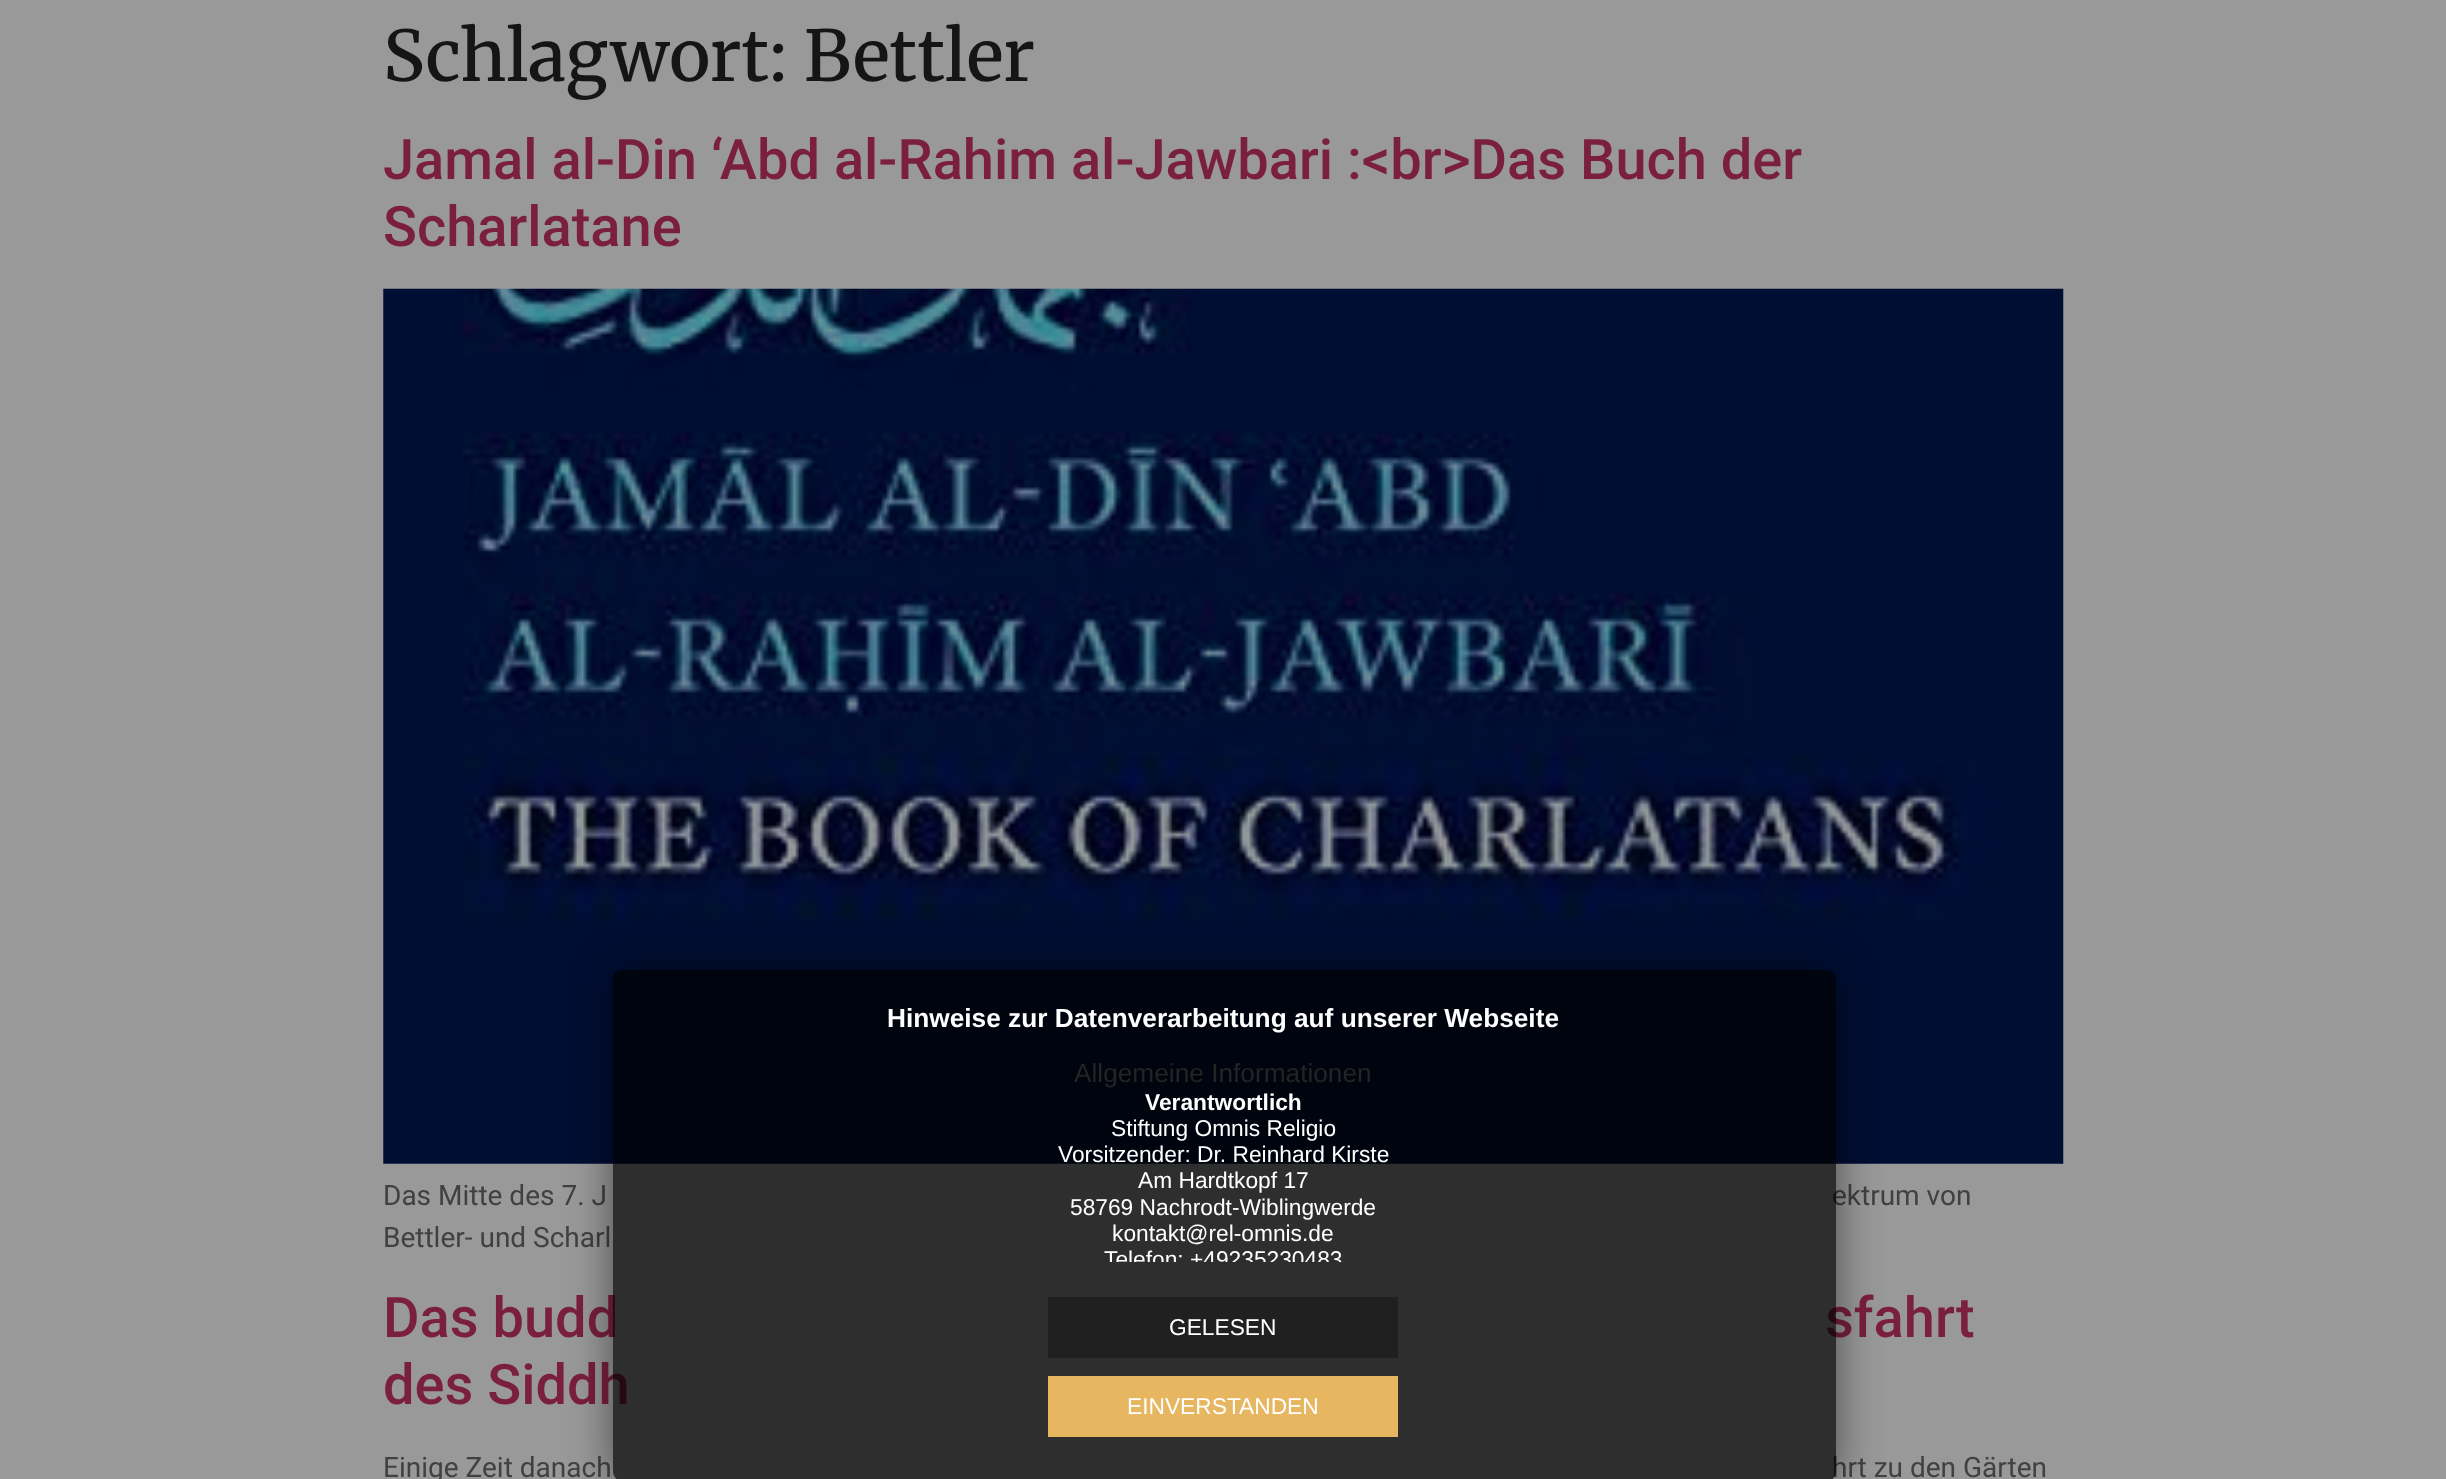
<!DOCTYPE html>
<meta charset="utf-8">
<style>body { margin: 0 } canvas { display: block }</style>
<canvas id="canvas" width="2446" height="1479"></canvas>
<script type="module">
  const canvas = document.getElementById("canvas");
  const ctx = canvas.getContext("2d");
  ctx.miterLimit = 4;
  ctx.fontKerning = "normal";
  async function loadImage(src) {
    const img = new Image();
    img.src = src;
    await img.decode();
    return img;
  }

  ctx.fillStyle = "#999999";
  ctx.fillRect(0, 0, 2446, 1479);
  ctx.font = "500 70px Merriweather";
  ctx.fillStyle = "#151515";
  ctx.fillText("Schlagwort: Bettler", 383, 81);
  ctx.font = "500 56px Roboto";
  ctx.fillStyle = "#7a1f3d";
  ctx.fillText("Jamal al-Din ‘Abd al-Rahim al-Jawbari :<br>Das Buch der", 383, 179);
  ctx.fillText("Scharlatane", 383, 246);
  ctx.drawImage(await loadImage("img1.png"), 383, 288, 1681, 876);
  ctx.font = "28px Roboto";
  ctx.fillStyle = "#414141";
  ctx.fillText("Das Mitte des 7. J", 383, 1205);
  ctx.fillText("ektrum von", 1832, 1205);
  ctx.fillText("Bettler- und Scharl", 383, 1247);
  ctx.font = "500 56px Roboto";
  ctx.fillStyle = "#7a1f3d";
  ctx.fillText("Das budd", 383, 1337);
  ctx.fillText("sfahrt", 1825, 1337);
  ctx.fillText("des Siddh", 383, 1404);
  ctx.font = "28px Roboto";
  ctx.fillStyle = "#414141";
  ctx.fillText("Einige Zeit danach", 383, 1477);
  ctx.fillText("hrt zu den Gärten", 1832, 1477);
  ctx.save();
  ctx.beginPath();
  ctx.moveTo(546, 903);
  ctx.lineTo(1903, 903);
  ctx.lineTo(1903, 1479);
  ctx.lineTo(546, 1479);
  ctx.closePath();
  ctx.moveTo(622, 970);
  ctx.lineTo(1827, 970);
  ctx.bezierCurveTo(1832, 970, 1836, 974, 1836, 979);
  ctx.lineTo(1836, 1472);
  ctx.bezierCurveTo(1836, 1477, 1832, 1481, 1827, 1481);
  ctx.lineTo(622, 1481);
  ctx.bezierCurveTo(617, 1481, 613, 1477, 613, 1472);
  ctx.lineTo(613, 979);
  ctx.bezierCurveTo(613, 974, 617, 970, 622, 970);
  ctx.closePath();
  ctx.clip("evenodd");
  ctx.fillStyle = "rgba(0, 0, 0, 0.5)";
  ctx.filter = "blur(22px)";
  ctx.beginPath();
  ctx.roundRect(613, 970, 1223, 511, 9);
  ctx.fill();
  ctx.filter = "none";
  ctx.restore();
  ctx.fillStyle = "rgba(0, 0, 0, 0.7)";
  ctx.beginPath();
  ctx.roundRect(613, 970, 1223, 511, 9);
  ctx.fill();
  ctx.font = "bold 26.25px Liberation Sans";
  ctx.fillStyle = "#ffffff";
  ctx.fillText("Hinweise zur Datenverarbeitung auf unserer Webseite", 887, 1027);
  ctx.font = "26.25px Liberation Sans";
  ctx.fillStyle = "#242424";
  ctx.fillText("Allgemeine Informationen", 1074, 1082);
  ctx.font = "bold 22.75px Liberation Sans";
  ctx.fillStyle = "#ffffff";
  ctx.fillText("Verantwortlich", 1145, 1110);
  ctx.font = "22.75px Liberation Sans";
  ctx.fillText("Stiftung Omnis Religio", 1111, 1136);
  ctx.fillText("Vorsitzender: Dr. Reinhard Kirste", 1058, 1162);
  ctx.fillText("Am Hardtkopf 17", 1138, 1188);
  ctx.fillText("58769 Nachrodt-Wiblingwerde", 1070, 1215);
  ctx.fillText("kontakt@rel-omnis.de", 1112, 1241);
  ctx.save();
  ctx.beginPath();
  ctx.rect(648, 1040, 1153, 222);
  ctx.clip();
  ctx.fillText("Telefon: +49235230483", 1104, 1267);
  ctx.restore();
  ctx.fillStyle = "rgba(0, 0, 0, 0.3)";
  ctx.fillRect(1048, 1297, 350, 61);
  ctx.fillStyle = "#ffffff";
  ctx.fillText("GELESEN", 1169, 1335);
  ctx.fillStyle = "#e6b660";
  ctx.fillRect(1048, 1376, 350, 61);
  ctx.fillStyle = "#ffffff";
  ctx.fillText("EINVERSTANDEN", 1127, 1414);
</script>
